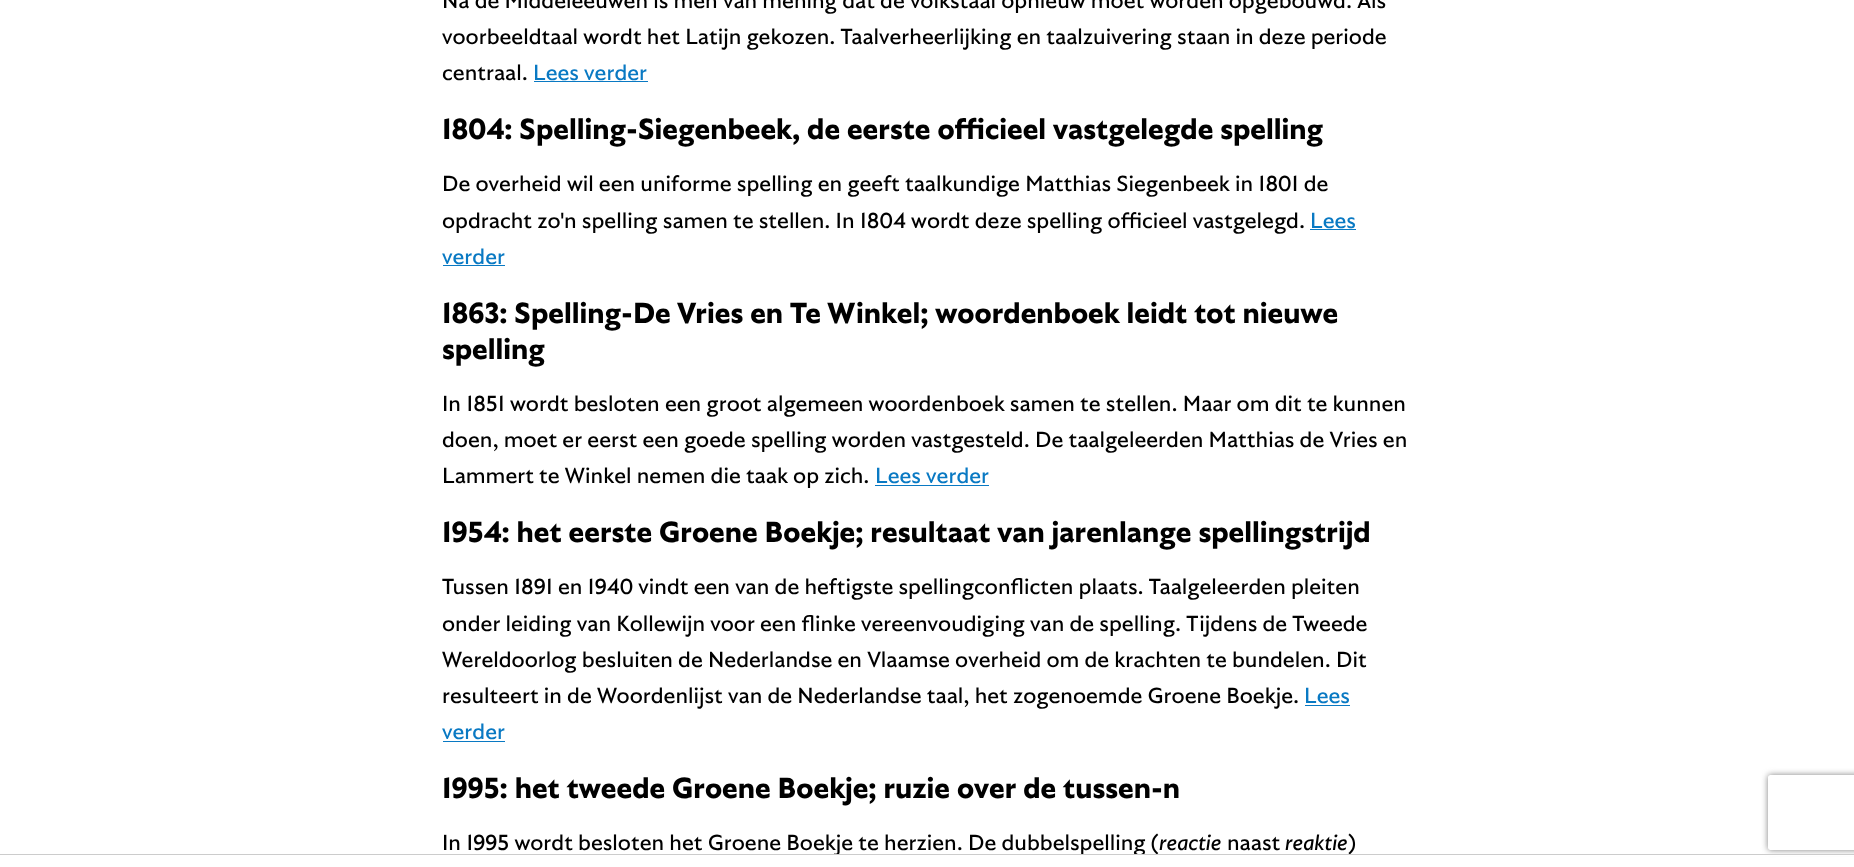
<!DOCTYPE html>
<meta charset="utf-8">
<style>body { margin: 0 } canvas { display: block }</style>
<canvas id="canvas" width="1854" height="867"></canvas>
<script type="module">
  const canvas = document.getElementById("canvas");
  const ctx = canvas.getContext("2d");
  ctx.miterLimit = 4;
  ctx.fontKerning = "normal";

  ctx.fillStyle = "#ffffff";
  ctx.fillRect(0, 0, 1854, 867);
  ctx.font = "22.5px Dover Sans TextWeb";
  ctx.fillStyle = "#000000";
  ctx.fillText("Na de Middeleeuwen is men van mening dat de volkstaal opnieuw moet worden opgebouwd. Als", 442, 8);
  ctx.fillText("voorbeeldtaal wordt het Latijn gekozen. Taalverheerlijking en taalzuivering staan in deze periode", 442, 44);
  ctx.fillText("centraal.", 442, 80);
  ctx.fillStyle = "#0979c3";
  ctx.fillText("Lees verder", 533, 80);
  ctx.fillRect(534, 81, 114, 1);
  ctx.font = "bold 30px Dover Sans TextWeb";
  ctx.fillStyle = "#000000";
  ctx.fillText("1804: Spelling-Siegenbeek, de eerste officieel vastgelegde spelling", 442, 139);
  ctx.font = "22.5px Dover Sans TextWeb";
  ctx.fillText("De overheid wil een uniforme spelling en geeft taalkundige Matthias Siegenbeek in 1801 de", 442, 191);
  ctx.fillText("opdracht zo'n spelling samen te stellen. In 1804 wordt deze spelling officieel vastgelegd.", 442, 228);
  ctx.fillStyle = "#0979c3";
  ctx.fillText("Lees", 1310, 228);
  ctx.fillRect(1310, 229, 46, 1);
  ctx.fillText("verder", 442, 264);
  ctx.fillRect(443, 265, 62, 1);
  ctx.font = "bold 30px Dover Sans TextWeb";
  ctx.fillStyle = "#000000";
  ctx.fillText("1863: Spelling-De Vries en Te Winkel; woordenboek leidt tot nieuwe", 442, 323);
  ctx.fillText("spelling", 442, 359);
  ctx.font = "22.5px Dover Sans TextWeb";
  ctx.fillText("In 1851 wordt besloten een groot algemeen woordenboek samen te stellen. Maar om dit te kunnen", 442, 411);
  ctx.fillText("doen, moet er eerst een goede spelling worden vastgesteld. De taalgeleerden Matthias de Vries en", 442, 447);
  ctx.fillText("Lammert te Winkel nemen die taak op zich.", 442, 483);
  ctx.fillStyle = "#0979c3";
  ctx.fillText("Lees verder", 875, 483);
  ctx.fillRect(875, 485, 114, 1);
  ctx.font = "bold 30px Dover Sans TextWeb";
  ctx.fillStyle = "#000000";
  ctx.fillText("1954: het eerste Groene Boekje; resultaat van jarenlange spellingstrijd", 442, 542);
  ctx.font = "22.5px Dover Sans TextWeb";
  ctx.fillText("Tussen 1891 en 1940 vindt een van de heftigste spellingconflicten plaats. Taalgeleerden pleiten", 442, 594);
  ctx.fillText("onder leiding van Kollewijn voor een flinke vereenvoudiging van de spelling. Tijdens de Tweede", 442, 631);
  ctx.fillText("Wereldoorlog besluiten de Nederlandse en Vlaamse overheid om de krachten te bundelen. Dit", 442, 667);
  ctx.fillText("resulteert in de Woordenlijst van de Nederlandse taal, het zogenoemde Groene Boekje.", 442, 703);
  ctx.fillStyle = "#0979c3";
  ctx.fillText("Lees", 1304, 703);
  ctx.fillRect(1305, 705, 45, 1);
  ctx.fillText("verder", 442, 739);
  ctx.fillRect(443, 741, 62, 1);
  ctx.font = "bold 30px Dover Sans TextWeb";
  ctx.fillStyle = "#000000";
  ctx.fillText("1995: het tweede Groene Boekje; ruzie over de tussen-n", 442, 798);
  ctx.font = "22.5px Dover Sans TextWeb";
  ctx.fillText("In 1995 wordt besloten het Groene Boekje te herzien. De dubbelspelling (", 442, 850);
  ctx.font = "italic 22.5px Dover Sans TextWeb";
  ctx.fillText("reactie", 1159, 850);
  ctx.font = "22.5px Dover Sans TextWeb";
  ctx.fillText("naast", 1227, 850);
  ctx.font = "italic 22.5px Dover Sans TextWeb";
  ctx.fillText("reaktie", 1285, 850);
  ctx.font = "22.5px Dover Sans TextWeb";
  ctx.fillText(")", 1348, 850);
  ctx.save();
  ctx.beginPath();
  ctx.moveTo(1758, 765);
  ctx.lineTo(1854, 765);
  ctx.lineTo(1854, 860);
  ctx.lineTo(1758, 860);
  ctx.closePath();
  ctx.moveTo(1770.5, 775);
  ctx.lineTo(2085.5, 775);
  ctx.bezierCurveTo(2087, 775, 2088, 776, 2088, 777.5);
  ctx.lineTo(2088, 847.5);
  ctx.bezierCurveTo(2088, 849, 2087, 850, 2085.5, 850);
  ctx.lineTo(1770.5, 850);
  ctx.bezierCurveTo(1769, 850, 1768, 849, 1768, 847.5);
  ctx.lineTo(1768, 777.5);
  ctx.bezierCurveTo(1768, 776, 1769, 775, 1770.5, 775);
  ctx.closePath();
  ctx.clip("evenodd");
  ctx.fillStyle = "#808080";
  ctx.filter = "blur(3px)";
  ctx.beginPath();
  ctx.roundRect(1768, 775, 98, 75, 2.5);
  ctx.fill();
  ctx.filter = "none";
  ctx.restore();
  ctx.fillStyle = "#ffffff";
  ctx.fillRect(834, 855, 1020, 1);
  ctx.fillStyle = "#cccccc";
  ctx.fillRect(0, 854, 1854, 1);
</script>
